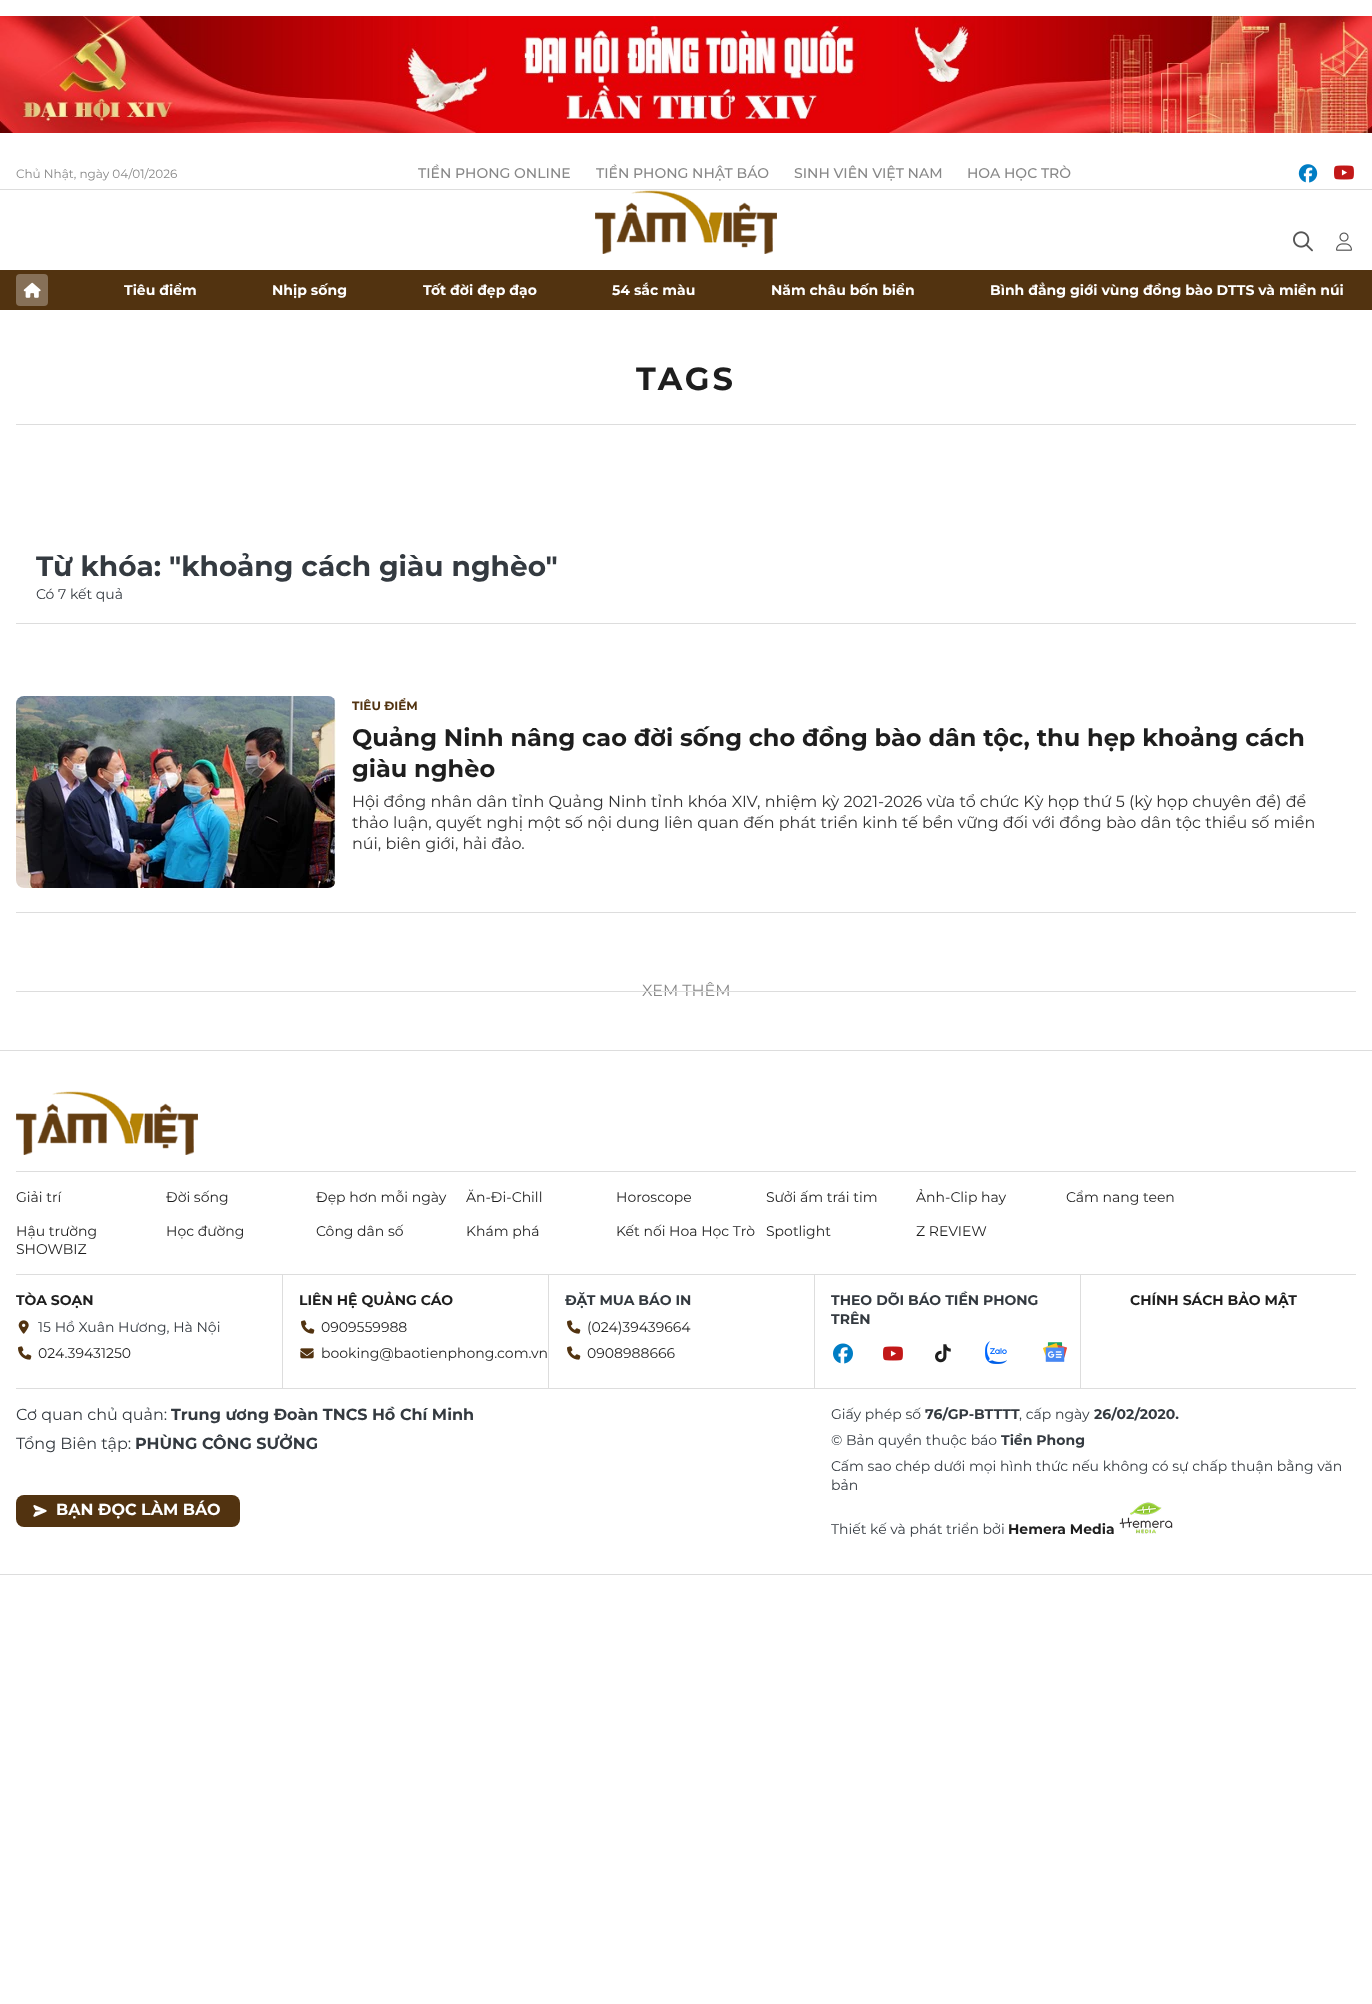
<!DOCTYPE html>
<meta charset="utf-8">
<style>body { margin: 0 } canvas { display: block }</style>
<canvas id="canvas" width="1372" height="2004"></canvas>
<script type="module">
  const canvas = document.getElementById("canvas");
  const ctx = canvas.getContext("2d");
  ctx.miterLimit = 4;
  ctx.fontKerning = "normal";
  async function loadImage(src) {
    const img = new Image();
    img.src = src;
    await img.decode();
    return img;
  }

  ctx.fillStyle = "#ffffff";
  ctx.fillRect(0, 0, 1372, 2004);
  ctx.drawImage(await loadImage("img1.png"), 0, 16, 1372, 117);
  ctx.fillStyle = "#dddddd";
  ctx.fillRect(0, 189, 1372, 1);
  ctx.font = "12px Montserrat";
  ctx.fillStyle = "#888888";
  ctx.fillText("Chủ Nhật, ngày 04/01/2026", 16, 178);
  ctx.font = "500 14px Montserrat";
  ctx.fillText("TIỀN PHONG ONLINE", 418, 178);
  ctx.fillText("TIỀN PHONG NHẬT BÁO", 596, 178);
  ctx.fillText("SINH VIÊN VIỆT NAM", 794, 178);
  ctx.fillText("HOA HỌC TRÒ", 967, 178);
  ctx.drawImage(await loadImage("img2.png"), 1298, 164, 20, 19);
  ctx.drawImage(await loadImage("img3.png"), 1334, 165, 20, 15);
  ctx.drawImage(await loadImage("img4.png"), 595, 190, 182, 64);
  ctx.drawImage(await loadImage("img5.png"), 1293, 231, 20, 21);
  ctx.drawImage(await loadImage("img6.png"), 1336, 232, 16, 19);
  ctx.fillStyle = "#523310";
  ctx.fillRect(0, 270, 1372, 40);
  ctx.fillStyle = "#867058";
  ctx.beginPath();
  ctx.roundRect(16, 274, 32, 32, 4);
  ctx.fill();
  ctx.drawImage(await loadImage("img7.png"), 23, 282, 18, 16);
  ctx.font = "bold 14px Montserrat";
  ctx.fillStyle = "#ffffff";
  ctx.fillText("Tiêu điểm", 124, 295);
  ctx.fillText("Nhịp sống", 272, 295);
  ctx.fillText("Tốt đời đẹp đạo", 423, 295);
  ctx.fillText("54 sắc màu", 612, 295);
  ctx.fillText("Năm châu bốn biển", 771, 295);
  ctx.fillText("Bình đẳng giới vùng đồng bào DTTS và miền núi", 990, 295);
  ctx.fillStyle = "#dddddd";
  ctx.fillRect(16, 424, 1340, 1);
  ctx.letterSpacing = "3px";
  ctx.font = "bold 32px Montserrat";
  ctx.fillStyle = "#1e1e1e";
  ctx.fillText("TAGS", 636, 390);
  ctx.fillStyle = "#dddddd";
  ctx.fillRect(16, 623, 1340, 1);
  ctx.letterSpacing = "0px";
  ctx.font = "bold 28px Montserrat";
  ctx.fillStyle = "#343a40";
  ctx.fillText("Từ khóa: \"khoảng cách giàu nghèo\"", 36, 576);
  ctx.font = "14px Montserrat";
  ctx.fillText("Có 7 kết quả", 36, 599);
  ctx.fillStyle = "#dddddd";
  ctx.fillRect(16, 912, 1340, 1);
  ctx.drawImage(await loadImage("img8.png"), 16, 696, 320, 192);
  ctx.font = "bold 12px Montserrat";
  ctx.fillStyle = "#523310";
  ctx.fillText("TIÊU ĐIỂM", 352, 710);
  ctx.font = "bold 24px Montserrat";
  ctx.fillStyle = "#1e1e1e";
  ctx.fillText("Quảng Ninh nâng cao đời sống cho đồng bào dân tộc, thu hẹp khoảng cách", 352, 746);
  ctx.fillText("giàu nghèo", 352, 777);
  ctx.font = "16px Montserrat";
  ctx.fillStyle = "#333333";
  ctx.fillText("Hội đồng nhân dân tỉnh Quảng Ninh tỉnh khóa XIV, nhiệm kỳ 2021-2026 vừa tổ chức Kỳ họp thứ 5 (kỳ họp chuyên đề) để", 352, 807);
  ctx.fillText("thảo luận, quyết nghị một số nội dung liên quan đến phát triển kinh tế bền vững đối với đồng bào dân tộc thiểu số miền", 352, 828);
  ctx.fillText("núi, biên giới, hải đảo.", 352, 849);
  ctx.fillStyle = "#888888";
  ctx.fillText("XEM THÊM", 642, 996);
  ctx.fillStyle = "#dddddd";
  ctx.fillRect(16, 991, 1340, 1);
  ctx.fillRect(0, 1050, 1372, 1);
  ctx.fillRect(0, 1574, 1372, 1);
  ctx.fillRect(16, 1171, 1340, 1);
  ctx.drawImage(await loadImage("img4.png"), 16, 1091, 182, 64);
  ctx.fillRect(16, 1274, 1340, 1);
  ctx.font = "14px Montserrat";
  ctx.fillStyle = "#1e1e1e";
  ctx.fillText("Giải trí", 16, 1202);
  ctx.fillText("Đời sống", 166, 1202);
  ctx.fillText("Đẹp hơn mỗi ngày", 316, 1202);
  ctx.fillText("Ăn-Đi-Chill", 466, 1202);
  ctx.fillText("Horoscope", 616, 1202);
  ctx.fillText("Sưởi ấm trái tim", 766, 1202);
  ctx.fillText("Ảnh-Clip hay", 916, 1202);
  ctx.fillText("Cẩm nang teen", 1066, 1202);
  ctx.fillText("Hậu trường", 16, 1236);
  ctx.fillText("SHOWBIZ", 16, 1254);
  ctx.fillText("Học đường", 166, 1236);
  ctx.fillText("Công dân số", 316, 1236);
  ctx.fillText("Khám phá", 466, 1236);
  ctx.fillText("Kết nối Hoa Học Trò", 616, 1236);
  ctx.fillText("Spotlight", 766, 1236);
  ctx.fillText("Z REVIEW", 916, 1236);
  ctx.fillStyle = "#dddddd";
  ctx.fillRect(16, 1388, 1340, 1);
  ctx.font = "bold 14px Montserrat";
  ctx.fillStyle = "#1e1e1e";
  ctx.fillText("TÒA SOẠN", 16, 1305);
  ctx.drawImage(await loadImage("img9.png"), 18, 1320, 11, 14);
  ctx.font = "14px Montserrat";
  ctx.fillStyle = "#343a40";
  ctx.fillText("15 Hồ Xuân Hương, Hà Nội", 38, 1332);
  ctx.drawImage(await loadImage("img10.png"), 18, 1346, 14, 14);
  ctx.fillStyle = "#1e1e1e";
  ctx.fillText("024.39431250", 38, 1358);
  ctx.fillStyle = "#dddddd";
  ctx.fillRect(282, 1275, 1, 113);
  ctx.font = "bold 14px Montserrat";
  ctx.fillStyle = "#1e1e1e";
  ctx.fillText("LIÊN HỆ QUẢNG CÁO", 299, 1305);
  ctx.drawImage(await loadImage("img10.png"), 301, 1320, 14, 14);
  ctx.font = "14px Montserrat";
  ctx.fillText("0909559988", 321, 1332);
  ctx.drawImage(await loadImage("img11.png"), 300, 1348, 14, 11);
  ctx.fillText("booking@baotienphong.com.vn", 321, 1358);
  ctx.fillStyle = "#dddddd";
  ctx.fillRect(548, 1275, 1, 113);
  ctx.font = "bold 14px Montserrat";
  ctx.fillStyle = "#343a40";
  ctx.fillText("ĐẶT MUA BÁO IN", 565, 1305);
  ctx.drawImage(await loadImage("img10.png"), 567, 1320, 14, 14);
  ctx.font = "14px Montserrat";
  ctx.fillStyle = "#1e1e1e";
  ctx.fillText("(024)39439664", 587, 1332);
  ctx.drawImage(await loadImage("img10.png"), 567, 1346, 14, 14);
  ctx.fillText("0908988666", 587, 1358);
  ctx.fillStyle = "#dddddd";
  ctx.fillRect(814, 1275, 1, 113);
  ctx.font = "bold 14px Montserrat";
  ctx.fillStyle = "#343a40";
  ctx.fillText("THEO DÕI BÁO TIỀN PHONG", 831, 1305);
  ctx.fillText("TRÊN", 831, 1324);
  ctx.drawImage(await loadImage("img12.png"), 833, 1343, 20, 21);
  ctx.drawImage(await loadImage("img3.png"), 883, 1346, 20, 15);
  ctx.drawImage(await loadImage("img13.png"), 935, 1344, 16, 19);
  ctx.drawImage(await loadImage("img14.png"), 985, 1341, 22, 23);
  ctx.drawImage(await loadImage("img15.png"), 1043, 1342, 24, 20);
  ctx.fillStyle = "#dddddd";
  ctx.fillRect(1080, 1275, 1, 113);
  ctx.fillStyle = "#1e1e1e";
  ctx.fillText("CHÍNH SÁCH BẢO MẬT", 1130, 1305);
  ctx.font = "16px Montserrat";
  ctx.fillStyle = "#343a40";
  ctx.fillText("Cơ quan chủ quản:", 16, 1420);
  ctx.font = "bold 16px Montserrat";
  ctx.fillText("Trung ương Đoàn TNCS Hồ Chí Minh", 171, 1420);
  ctx.font = "16px Montserrat";
  ctx.fillText("Tổng Biên tập:", 16, 1449);
  ctx.font = "bold 16px Montserrat";
  ctx.fillText("PHÙNG CÔNG SƯỞNG", 135, 1449);
  ctx.fillStyle = "#523310";
  ctx.beginPath();
  ctx.roundRect(16, 1495, 224, 32, 8);
  ctx.fill();
  ctx.drawImage(await loadImage("img16.png"), 33, 1505, 14, 12);
  ctx.fillStyle = "#ffffff";
  ctx.fillText("BẠN ĐỌC LÀM BÁO", 56, 1515);
  ctx.font = "14px Montserrat";
  ctx.fillStyle = "#343a40";
  ctx.fillText("Giấy phép số", 831, 1419);
  ctx.font = "bold 14px Montserrat";
  ctx.fillText("76/GP-BTTTT", 925, 1419);
  ctx.font = "14px Montserrat";
  ctx.fillText(", cấp ngày", 1019, 1419);
  ctx.font = "bold 14px Montserrat";
  ctx.fillText("26/02/2020.", 1094, 1419);
  ctx.font = "14px Montserrat";
  ctx.fillText("© Bản quyền thuộc báo", 831, 1445);
  ctx.font = "bold 14px Montserrat";
  ctx.fillText("Tiền Phong", 1001, 1445);
  ctx.font = "14px Montserrat";
  ctx.fillText("Cấm sao chép dưới mọi hình thức nếu không có sự chấp thuận bằng văn", 831, 1471);
  ctx.fillText("bản", 831, 1490);
  ctx.fillText("Thiết kế và phát triển bởi", 831, 1534);
  ctx.font = "bold 14px Montserrat";
  ctx.fillStyle = "#1e1e1e";
  ctx.fillText("Hemera Media", 1008, 1534);
  ctx.drawImage(await loadImage("img17.png"), 1119, 1502, 54, 32);
</script>
